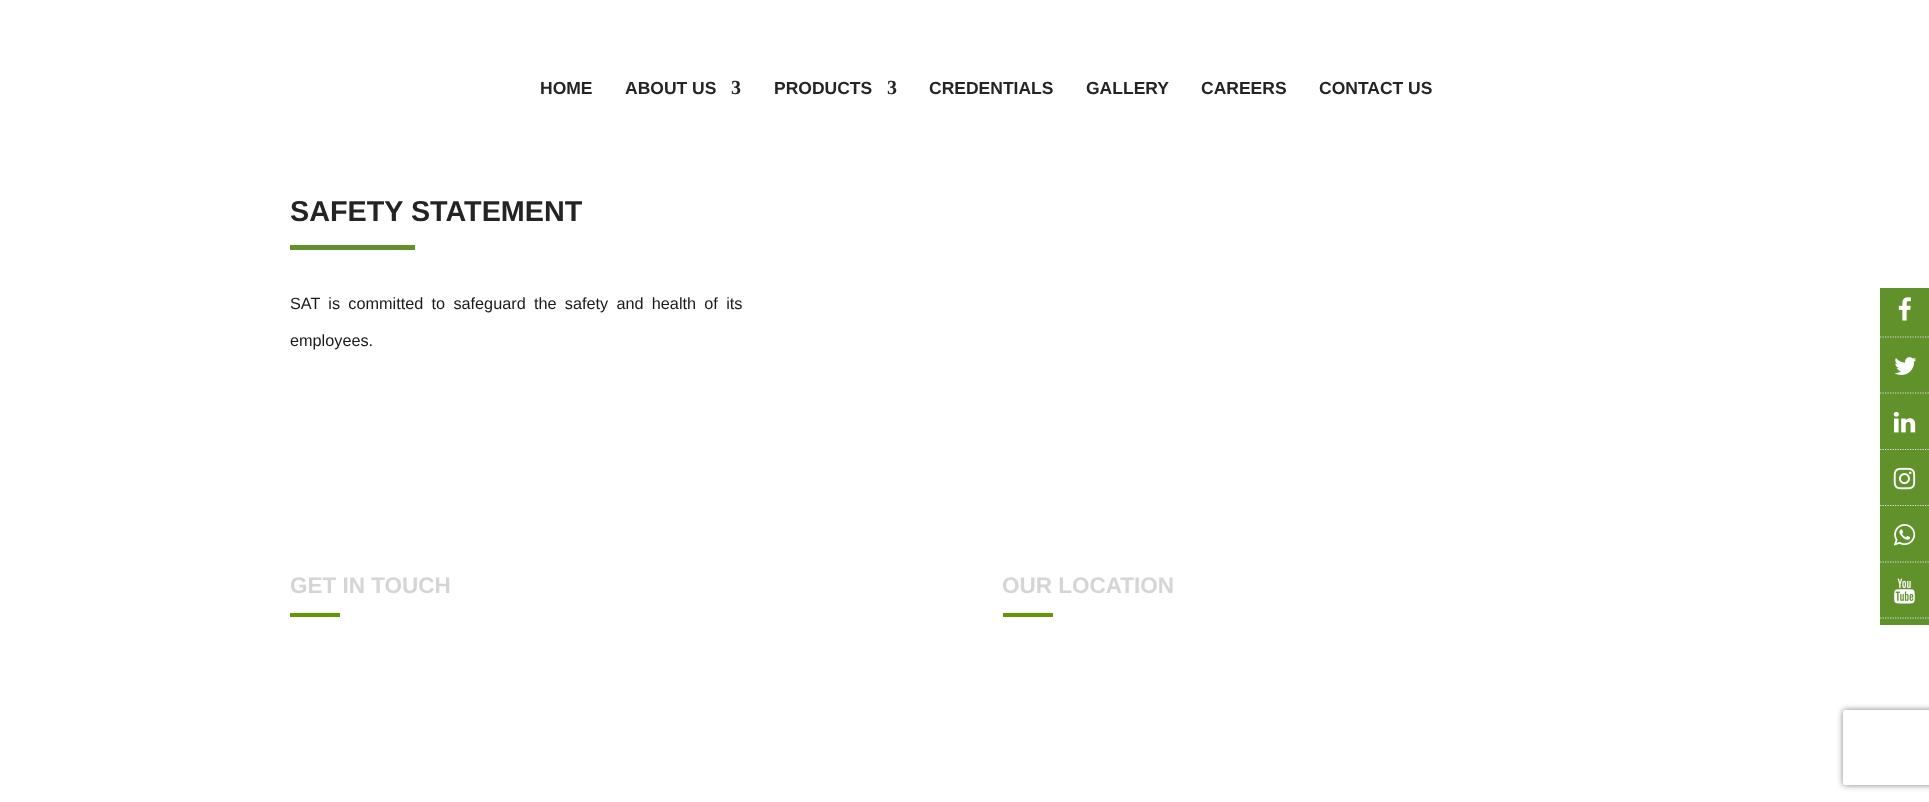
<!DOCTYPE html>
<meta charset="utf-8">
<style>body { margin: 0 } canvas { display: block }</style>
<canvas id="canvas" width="1929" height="802"></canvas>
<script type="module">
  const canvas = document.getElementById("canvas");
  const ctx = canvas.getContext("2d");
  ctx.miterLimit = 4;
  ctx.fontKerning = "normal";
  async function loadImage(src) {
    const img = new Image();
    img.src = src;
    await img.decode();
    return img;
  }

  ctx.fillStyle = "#ffffff";
  ctx.fillRect(0, 0, 1929, 802);
  ctx.font = "bold 17.5px Liberation Sans";
  ctx.fillStyle = "#242424";
  ctx.fillText("HOME", 540, 94);
  ctx.fillText("ABOUT US", 625, 94);
  ctx.font = "bold 20px Liberation Serif";
  ctx.fillText("3", 731, 94);
  ctx.font = "bold 17.5px Liberation Sans";
  ctx.fillText("PRODUCTS", 774, 94);
  ctx.font = "bold 20px Liberation Serif";
  ctx.fillText("3", 887, 94);
  ctx.font = "bold 17.5px Liberation Sans";
  ctx.fillText("CREDENTIALS", 929, 94);
  ctx.fillText("GALLERY", 1086, 94);
  ctx.fillText("CAREERS", 1201, 94);
  ctx.fillText("CONTACT US", 1319, 94);
  ctx.fillStyle = "#60912a";
  ctx.fillRect(1880, 288, 49, 337);
  ctx.beginPath();
  ctx.moveTo(1880, 337);
  ctx.lineTo(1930, 337);
  ctx.moveTo(1880, 393);
  ctx.lineTo(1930, 393);
  ctx.strokeStyle = "#dddddd";
  ctx.lineWidth = 1.2;
  ctx.setLineDash([1.25, 1.25]);
  ctx.stroke();
  ctx.drawImage(await loadImage("img1.png"), 1898, 297, 13, 24);
  ctx.drawImage(await loadImage("img2.png"), 1894, 357, 23, 18);
  ctx.beginPath();
  ctx.moveTo(1880, 449.5);
  ctx.lineTo(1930, 449.5);
  ctx.moveTo(1880, 505.5);
  ctx.lineTo(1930, 505.5);
  ctx.stroke();
  ctx.drawImage(await loadImage("img3.png"), 1893, 411, 23, 22);
  ctx.drawImage(await loadImage("img4.png"), 1893, 467, 23, 23);
  ctx.beginPath();
  ctx.moveTo(1880, 562);
  ctx.lineTo(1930, 562);
  ctx.moveTo(1880, 618);
  ctx.lineTo(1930, 618);
  ctx.stroke();
  ctx.drawImage(await loadImage("img5.png"), 1893, 524, 23, 22);
  ctx.drawImage(await loadImage("img6.png"), 1894, 578, 21, 26);
  ctx.font = "bold 28.75px Liberation Sans";
  ctx.fillStyle = "#242424";
  ctx.fillText("SAFETY STATEMENT", 290, 221);
  ctx.fillStyle = "#60912a";
  ctx.fillRect(290, 245, 125, 5);
  ctx.wordSpacing = "3.75px";
  ctx.font = "16.25px Liberation Sans";
  ctx.fillStyle = "#191919";
  ctx.fillText("SAT is committed to safeguard the safety and health of its", 290, 309);
  ctx.wordSpacing = "0px";
  ctx.fillText("employees.", 290, 346);
  ctx.font = "bold 22.5px Liberation Sans";
  ctx.fillStyle = "#d5d5d5";
  ctx.fillText("GET IN TOUCH", 290, 593);
  ctx.fillStyle = "#649803";
  ctx.fillRect(290, 613, 50, 4);
  ctx.fillStyle = "#d5d5d5";
  ctx.fillText("OUR LOCATION", 1002, 593);
  ctx.fillStyle = "#649803";
  ctx.fillRect(1003, 613, 50, 4);
  ctx.save();
  ctx.beginPath();
  ctx.moveTo(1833, 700);
  ctx.lineTo(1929, 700);
  ctx.lineTo(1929, 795);
  ctx.lineTo(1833, 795);
  ctx.closePath();
  ctx.moveTo(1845.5, 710);
  ctx.lineTo(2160.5, 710);
  ctx.bezierCurveTo(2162, 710, 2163, 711, 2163, 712.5);
  ctx.lineTo(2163, 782.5);
  ctx.bezierCurveTo(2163, 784, 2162, 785, 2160.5, 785);
  ctx.lineTo(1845.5, 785);
  ctx.bezierCurveTo(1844, 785, 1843, 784, 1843, 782.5);
  ctx.lineTo(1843, 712.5);
  ctx.bezierCurveTo(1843, 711, 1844, 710, 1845.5, 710);
  ctx.closePath();
  ctx.clip("evenodd");
  ctx.fillStyle = "#808080";
  ctx.filter = "blur(3px)";
  ctx.beginPath();
  ctx.roundRect(1843, 710, 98, 75, 2.5);
  ctx.fill();
  ctx.filter = "none";
  ctx.restore();
</script>
